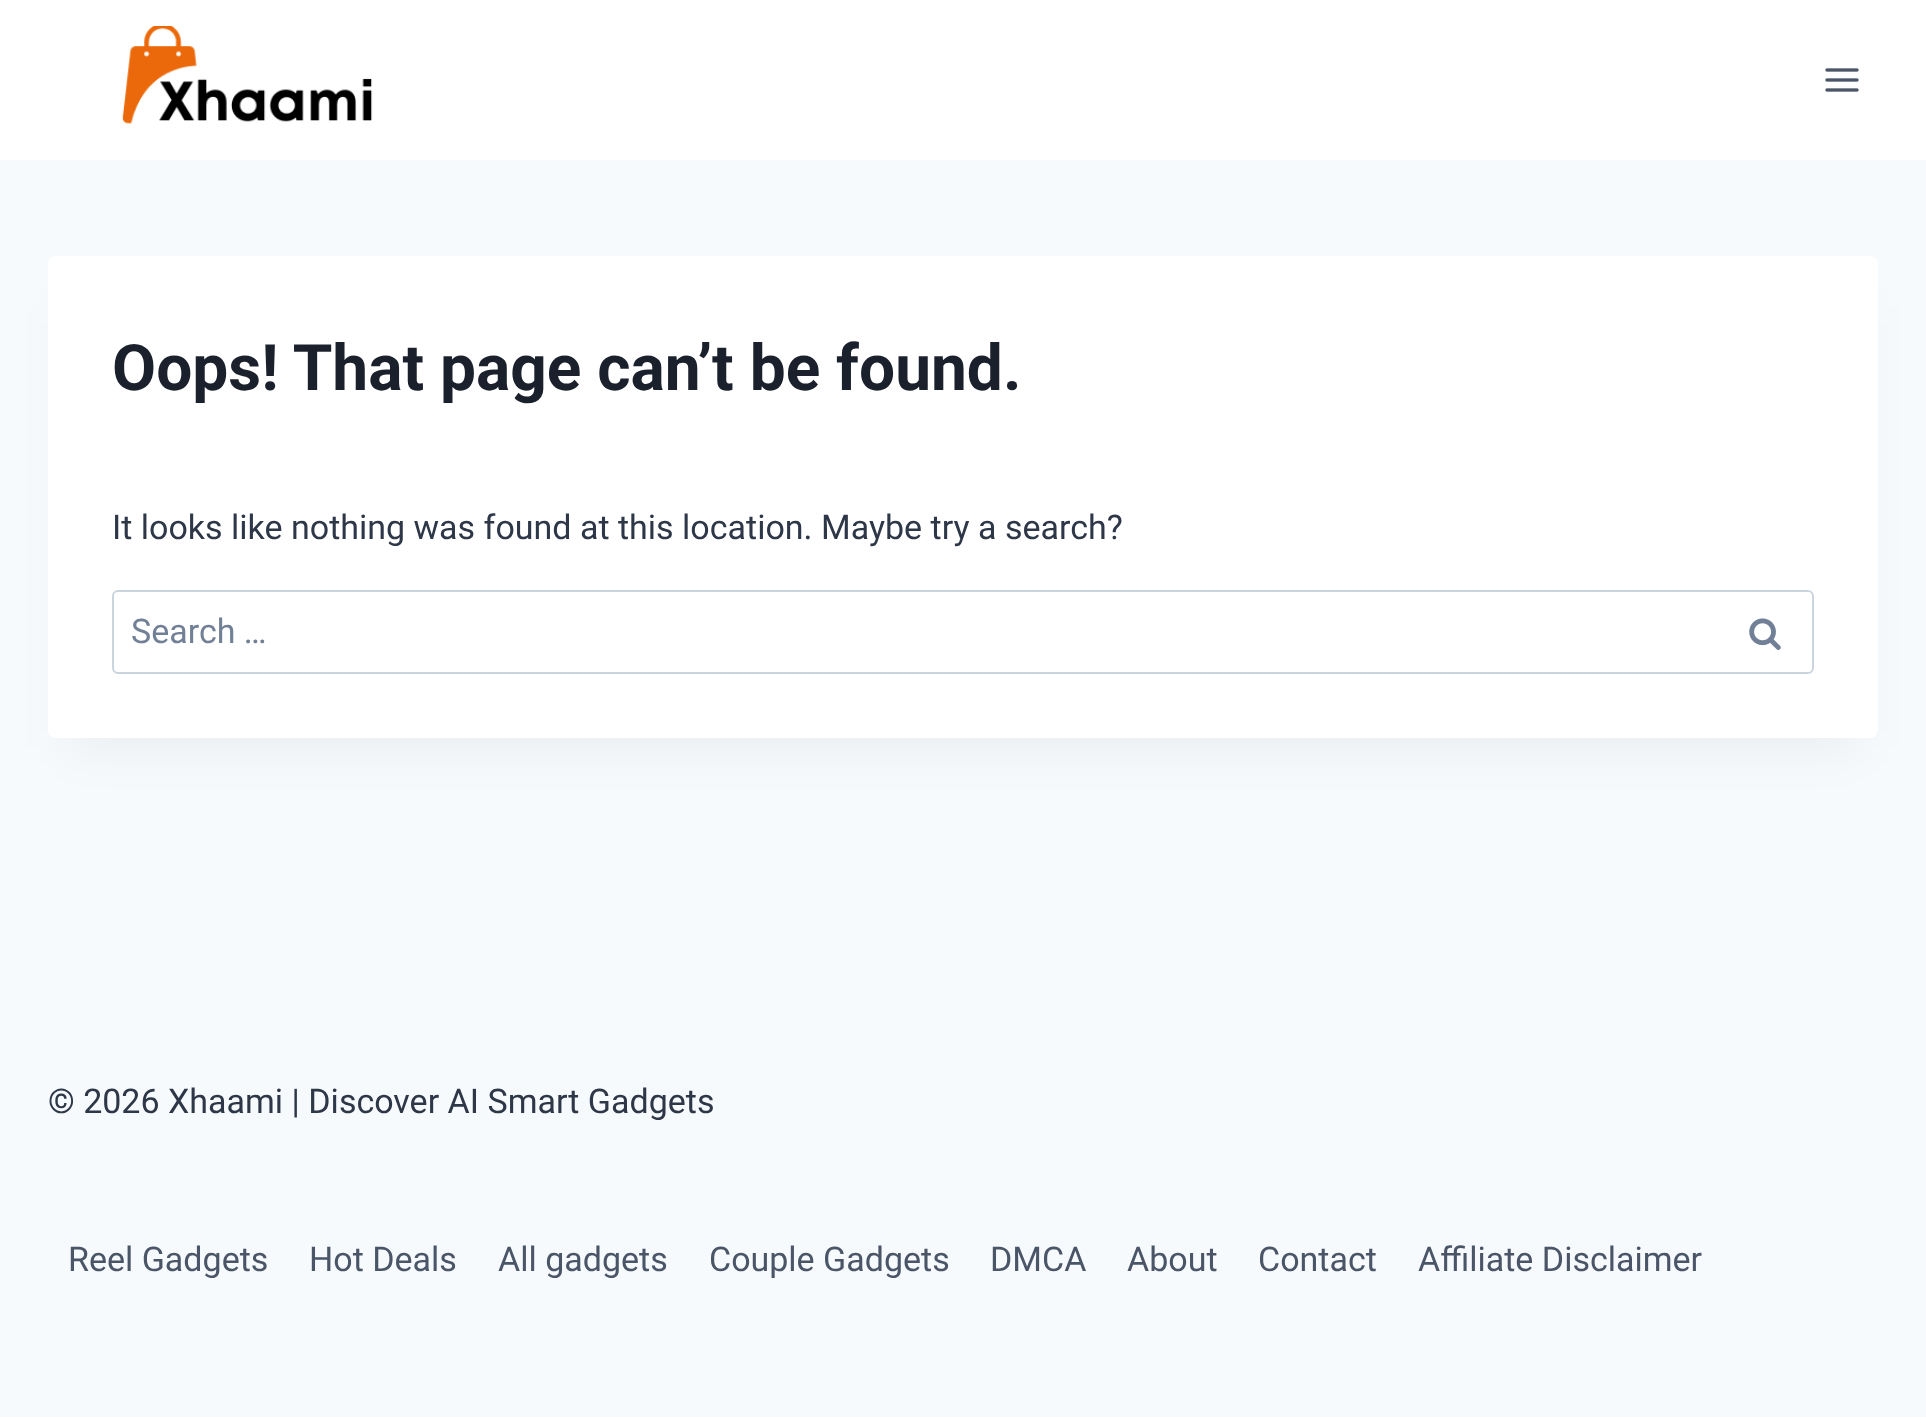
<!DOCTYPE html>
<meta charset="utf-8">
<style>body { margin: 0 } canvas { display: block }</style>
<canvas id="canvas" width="1926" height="1417"></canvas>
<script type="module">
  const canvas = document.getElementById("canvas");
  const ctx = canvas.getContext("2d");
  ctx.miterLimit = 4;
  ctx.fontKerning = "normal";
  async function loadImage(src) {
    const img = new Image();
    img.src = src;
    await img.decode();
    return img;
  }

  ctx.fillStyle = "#f7fafc";
  ctx.fillRect(0, 0, 1926, 1417);
  ctx.fillStyle = "#ffffff";
  ctx.fillRect(0, 0, 1926, 160);
  ctx.drawImage(await loadImage("img1.png"), 122, 26, 251, 98);
  ctx.drawImage(await loadImage("img2.png"), 1825, 68, 34, 24);
  ctx.fillStyle = "rgba(0, 0, 0, 0.05)";
  ctx.filter = "blur(25px)";
  ctx.beginPath();
  ctx.rect(68, 306, 1790, 442);
  ctx.fill();
  ctx.filter = "none";
  ctx.fillStyle = "#ffffff";
  ctx.beginPath();
  ctx.roundRect(48, 256, 1830, 482, 8);
  ctx.fill();
  ctx.font = "bold 64px Roboto";
  ctx.fillStyle = "#1a202c";
  ctx.fillText("Oops! That page can’t be found.", 112, 390);
  ctx.font = "34px Roboto";
  ctx.fillStyle = "#2d3748";
  ctx.fillText("It looks like nothing was found at this location. Maybe try a search?", 112, 539);
  ctx.beginPath();
  ctx.roundRect(113, 591, 1700, 82, 5);
  ctx.strokeStyle = "#cbd5e0";
  ctx.lineWidth = 2;
  ctx.stroke();
  ctx.fillStyle = "#718096";
  ctx.fillText("Search …", 131, 643);
  ctx.drawImage(await loadImage("img3.png"), 1749, 618, 32, 32);
  ctx.fillStyle = "#2d3748";
  ctx.fillText("© 2026 Xhaami | Discover AI Smart Gadgets", 48, 1113);
  ctx.fillStyle = "#4a5568";
  ctx.fillText("Reel Gadgets", 68, 1271);
  ctx.fillText("Hot Deals", 309, 1271);
  ctx.fillText("All gadgets", 498, 1271);
  ctx.fillText("Couple Gadgets", 709, 1271);
  ctx.fillText("DMCA", 990, 1271);
  ctx.fillText("About", 1127, 1271);
  ctx.fillText("Contact", 1258, 1271);
  ctx.fillText("Affiliate Disclaimer", 1418, 1271);
</script>
